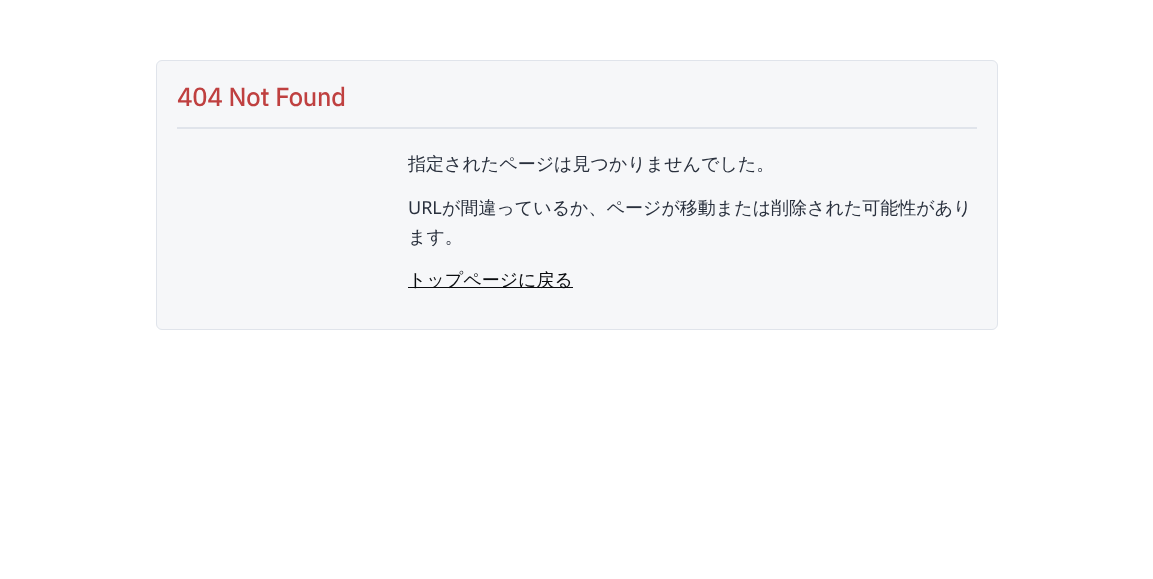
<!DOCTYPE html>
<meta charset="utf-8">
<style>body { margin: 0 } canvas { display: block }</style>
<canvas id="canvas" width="1153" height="579"></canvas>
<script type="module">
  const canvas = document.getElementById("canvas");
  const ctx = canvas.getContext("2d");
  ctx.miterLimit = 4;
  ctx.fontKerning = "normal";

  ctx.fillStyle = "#ffffff";
  ctx.fillRect(0, 0, 1153, 579);
  ctx.fillStyle = "#f6f7f9";
  ctx.beginPath();
  ctx.roundRect(156.5, 60.5, 841, 269, 5.5);
  ctx.fill();
  ctx.strokeStyle = "#e0e4eb";
  ctx.stroke();
  ctx.fillStyle = "#e0e4eb";
  ctx.fillRect(177, 127, 800, 2);
  ctx.font = "bold 24px IBM Plex Sans JP";
  ctx.fillStyle = "#bf4040";
  ctx.fillText("404 Not Found", 177, 106);
  ctx.font = "500 18px WenQuanYi Zen Hei";
  ctx.fillStyle = "#29303d";
  ctx.fillText("指定されたページは見つかりませんでした。", 408, 170);
  ctx.font = "18px Noto Sans";
  ctx.fillText("URL", 408, 214);
  ctx.font = "500 18px WenQuanYi Zen Hei";
  ctx.fillText("が間違っているか、ページが移動または削除された可能性があり", 442, 214);
  ctx.fillText("ます。", 408, 243);
  ctx.fillStyle = "#0a0c0f";
  ctx.fillRect(408, 287, 165, 1);
  ctx.fillText("トップページに戻る", 408, 286);
</script>
